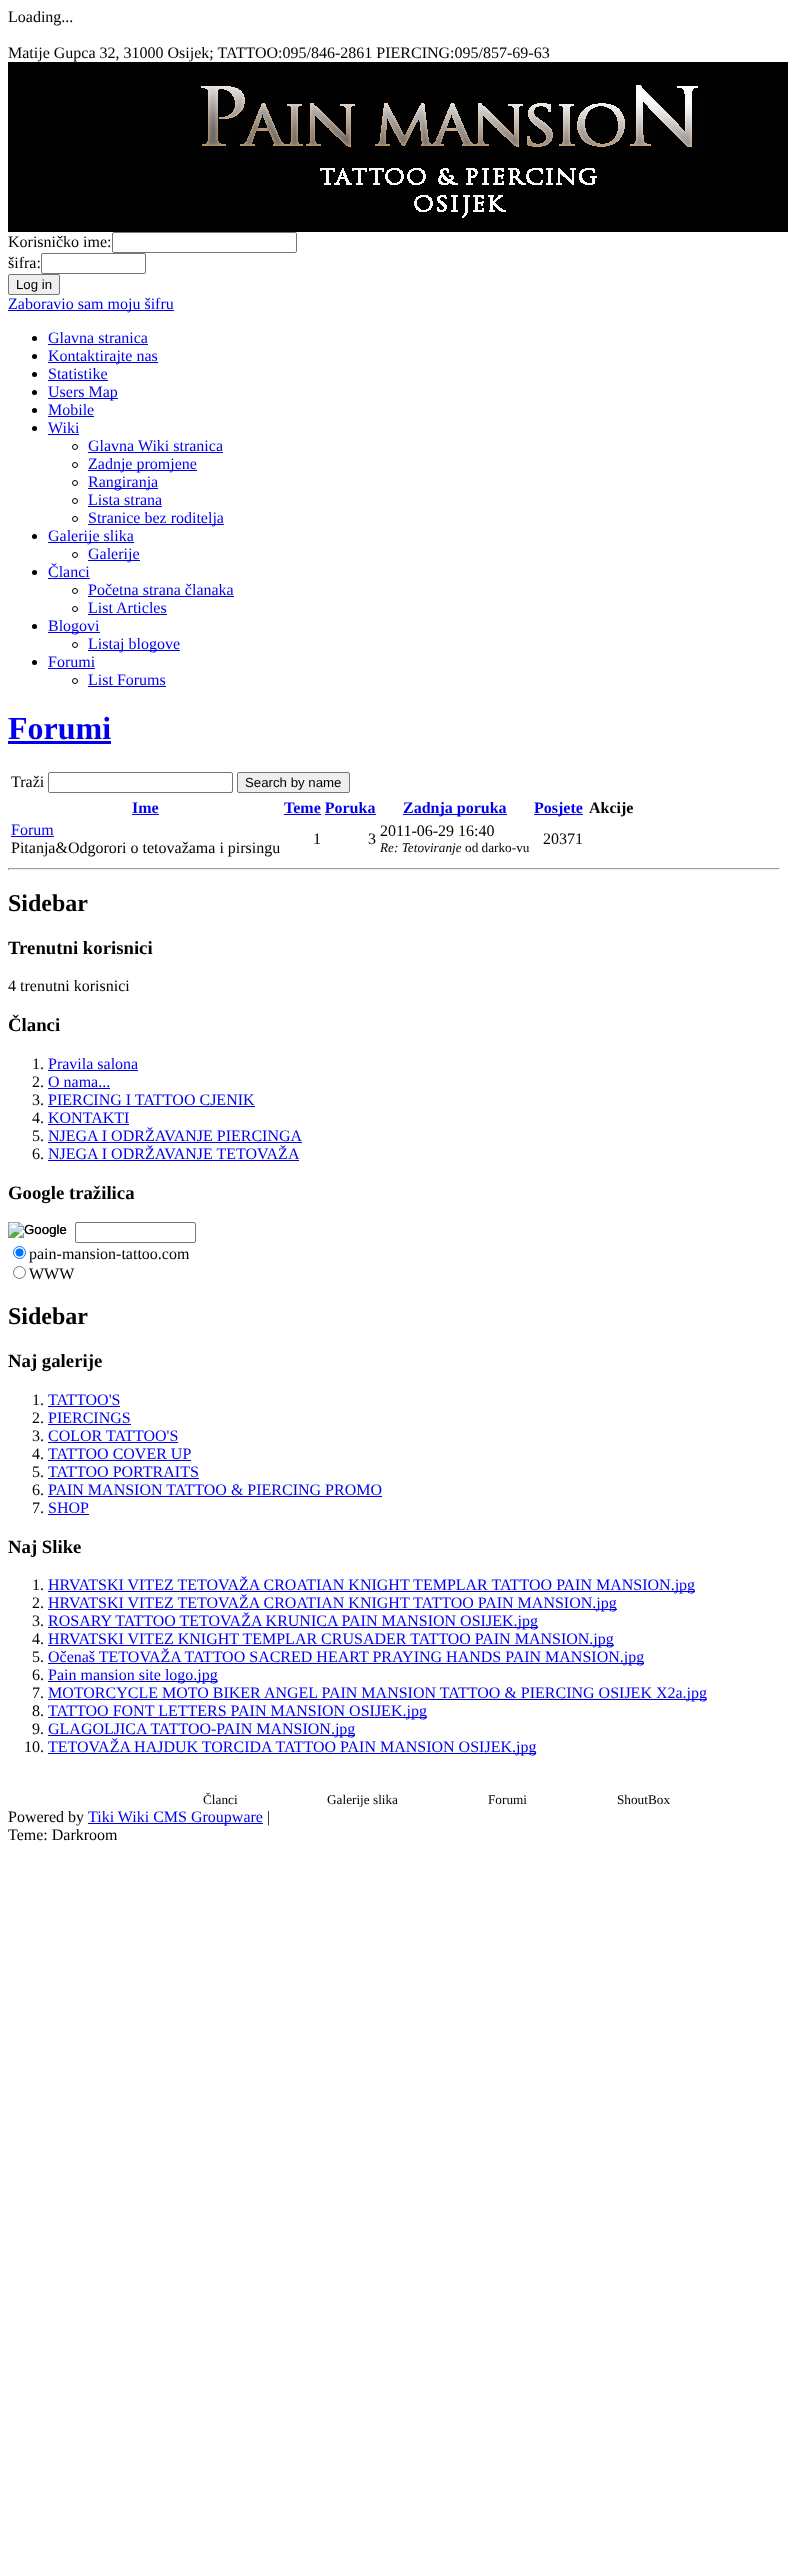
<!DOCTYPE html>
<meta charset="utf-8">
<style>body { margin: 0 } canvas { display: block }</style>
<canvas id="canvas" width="788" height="2553"></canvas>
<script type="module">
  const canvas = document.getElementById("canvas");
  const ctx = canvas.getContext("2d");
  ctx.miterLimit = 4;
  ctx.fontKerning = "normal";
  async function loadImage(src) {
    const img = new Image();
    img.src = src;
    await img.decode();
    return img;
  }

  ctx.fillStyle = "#ffffff";
  ctx.fillRect(0, 0, 788, 2553);
  ctx.font = "16px Liberation Serif";
  ctx.fillStyle = "#000000";
  ctx.fillText("Loading...", 8, 22);
  ctx.fillText("Matije Gupca 32, 31000 Osijek; TATTOO:095/846-2861 PIERCING:095/857-69-63", 8, 58);
  ctx.fillRect(8, 62, 193, 170);
  ctx.drawImage(await loadImage("img1.png"), 201, 62, 587, 170);
  ctx.fillText("Korisničko ime:", 8, 247);
  ctx.beginPath();
  ctx.roundRect(112.5, 232.5, 184, 20, 1.5);
  ctx.strokeStyle = "#767676";
  ctx.stroke();
  ctx.fillText("šifra:", 8, 268);
  ctx.beginPath();
  ctx.roundRect(41.5, 253.5, 104, 20, 1.5);
  ctx.stroke();
  ctx.fillStyle = "#efefef";
  ctx.beginPath();
  ctx.roundRect(8.5, 274.5, 51, 20, 1.5);
  ctx.fill();
  ctx.stroke();
  ctx.font = "13.25px Liberation Sans";
  ctx.fillStyle = "#000000";
  ctx.fillText("Log in", 16, 289);
  ctx.fillStyle = "#0000ee";
  ctx.fillRect(8, 310, 166, 1);
  ctx.font = "16px Liberation Serif";
  ctx.fillText("Zaboravio sam moju šifru", 8, 309);
  ctx.fillStyle = "#000000";
  ctx.beginPath();
  ctx.arc(34.5, 338.5, 2.5, 0, Math.PI * 2);
  ctx.fill();
  ctx.fillStyle = "#0000ee";
  ctx.fillText("Glavna stranica", 48, 343);
  ctx.fillRect(48, 344, 100, 1);
  ctx.fillStyle = "#000000";
  ctx.beginPath();
  ctx.arc(34.5, 356.5, 2.5, 0, Math.PI * 2);
  ctx.fill();
  ctx.fillStyle = "#0000ee";
  ctx.fillRect(48, 362, 110, 1);
  ctx.fillText("Kontaktirajte nas", 48, 361);
  ctx.fillStyle = "#000000";
  ctx.beginPath();
  ctx.arc(34.5, 374.5, 2.5, 0, Math.PI * 2);
  ctx.fill();
  ctx.fillStyle = "#0000ee";
  ctx.fillText("Statistike", 48, 379);
  ctx.fillRect(48, 380, 60, 1);
  ctx.fillStyle = "#000000";
  ctx.beginPath();
  ctx.arc(34.5, 392.5, 2.5, 0, Math.PI * 2);
  ctx.fill();
  ctx.fillStyle = "#0000ee";
  ctx.fillRect(48, 398, 70, 1);
  ctx.fillText("Users Map", 48, 397);
  ctx.fillStyle = "#000000";
  ctx.beginPath();
  ctx.arc(34.5, 410.5, 2.5, 0, Math.PI * 2);
  ctx.fill();
  ctx.fillStyle = "#0000ee";
  ctx.fillText("Mobile", 48, 415);
  ctx.fillRect(48, 416, 46, 1);
  ctx.fillStyle = "#000000";
  ctx.beginPath();
  ctx.arc(34.5, 428.5, 2.5, 0, Math.PI * 2);
  ctx.fill();
  ctx.fillStyle = "#0000ee";
  ctx.fillText("Wiki", 48, 433);
  ctx.fillRect(48, 434, 31, 1);
  ctx.beginPath();
  ctx.arc(75, 447, 2.5, 0, Math.PI * 2);
  ctx.strokeStyle = "#000000";
  ctx.stroke();
  ctx.fillText("Glavna Wiki stranica", 88, 451);
  ctx.fillRect(88, 452, 135, 1);
  ctx.beginPath();
  ctx.arc(75, 465, 2.5, 0, Math.PI * 2);
  ctx.stroke();
  ctx.fillRect(88, 470, 109, 1);
  ctx.fillText("Zadnje promjene", 88, 469);
  ctx.beginPath();
  ctx.arc(75, 483, 2.5, 0, Math.PI * 2);
  ctx.stroke();
  ctx.fillRect(88, 488, 70, 1);
  ctx.fillText("Rangiranja", 88, 487);
  ctx.beginPath();
  ctx.arc(75, 501, 2.5, 0, Math.PI * 2);
  ctx.stroke();
  ctx.fillText("Lista strana", 88, 505);
  ctx.fillRect(88, 506, 74, 1);
  ctx.beginPath();
  ctx.arc(75, 519, 2.5, 0, Math.PI * 2);
  ctx.stroke();
  ctx.fillRect(88, 524, 136, 1);
  ctx.fillText("Stranice bez roditelja", 88, 523);
  ctx.fillStyle = "#000000";
  ctx.beginPath();
  ctx.arc(34.5, 536.5, 2.5, 0, Math.PI * 2);
  ctx.fill();
  ctx.fillStyle = "#0000ee";
  ctx.fillRect(48, 542, 86, 1);
  ctx.fillText("Galerije slika", 48, 541);
  ctx.beginPath();
  ctx.arc(75, 555, 2.5, 0, Math.PI * 2);
  ctx.stroke();
  ctx.fillRect(88, 560, 52, 1);
  ctx.fillText("Galerije", 88, 559);
  ctx.fillStyle = "#000000";
  ctx.beginPath();
  ctx.arc(34.5, 572.5, 2.5, 0, Math.PI * 2);
  ctx.fill();
  ctx.fillStyle = "#0000ee";
  ctx.fillText("Članci", 48, 577);
  ctx.fillRect(48, 578, 42, 1);
  ctx.beginPath();
  ctx.arc(75, 591, 2.5, 0, Math.PI * 2);
  ctx.stroke();
  ctx.fillText("Početna strana članaka", 88, 595);
  ctx.fillRect(88, 596, 146, 1);
  ctx.beginPath();
  ctx.arc(75, 609, 2.5, 0, Math.PI * 2);
  ctx.stroke();
  ctx.fillText("List Articles", 88, 613);
  ctx.fillRect(88, 614, 79, 1);
  ctx.fillStyle = "#000000";
  ctx.beginPath();
  ctx.arc(34.5, 626.5, 2.5, 0, Math.PI * 2);
  ctx.fill();
  ctx.fillStyle = "#0000ee";
  ctx.fillRect(48, 632, 52, 1);
  ctx.fillText("Blogovi", 48, 631);
  ctx.beginPath();
  ctx.arc(75, 645, 2.5, 0, Math.PI * 2);
  ctx.stroke();
  ctx.fillRect(88, 650, 92, 1);
  ctx.fillText("Listaj blogove", 88, 649);
  ctx.fillStyle = "#000000";
  ctx.beginPath();
  ctx.arc(34.5, 662.5, 2.5, 0, Math.PI * 2);
  ctx.fill();
  ctx.fillStyle = "#0000ee";
  ctx.fillText("Forumi", 48, 667);
  ctx.fillRect(48, 668, 47, 1);
  ctx.beginPath();
  ctx.arc(75, 681, 2.5, 0, Math.PI * 2);
  ctx.stroke();
  ctx.fillText("List Forums", 88, 685);
  ctx.fillRect(88, 686, 78, 1);
  ctx.font = "bold 32px Liberation Serif";
  ctx.fillText("Forumi", 8, 739);
  ctx.fillRect(8, 741, 103, 3);
  ctx.font = "16px Liberation Serif";
  ctx.fillStyle = "#000000";
  ctx.fillText("Traži", 11, 787);
  ctx.beginPath();
  ctx.roundRect(48.5, 772.5, 184, 20, 1.5);
  ctx.strokeStyle = "#767676";
  ctx.stroke();
  ctx.fillStyle = "#efefef";
  ctx.beginPath();
  ctx.roundRect(237.5, 772.5, 112, 20, 1.5);
  ctx.fill();
  ctx.stroke();
  ctx.font = "13.25px Liberation Sans";
  ctx.fillStyle = "#000000";
  ctx.fillText("Search by name", 245, 787);
  ctx.font = "bold 16px Liberation Serif";
  ctx.fillStyle = "#0000ee";
  ctx.fillText("Ime", 132, 813);
  ctx.fillRect(132, 814, 27, 1);
  ctx.fillText("Teme Poruka", 284, 813);
  ctx.fillRect(284, 814, 37, 1);
  ctx.fillRect(403, 814, 104, 1);
  ctx.fillText("Zadnja poruka", 403, 813);
  ctx.fillRect(534, 814, 49, 1);
  ctx.fillText("Posjete", 534, 813);
  ctx.fillStyle = "#000000";
  ctx.fillText("Akcije", 589, 813);
  ctx.fillStyle = "#0000ee";
  ctx.fillRect(325, 814, 51, 1);
  ctx.font = "16px Liberation Serif";
  ctx.fillText("Forum", 11, 835);
  ctx.fillRect(11, 836, 43, 1);
  ctx.fillStyle = "#000000";
  ctx.fillText("Pitanja&Odgorori o tetovažama i pirsingu", 11, 853);
  ctx.fillText("1", 313, 844);
  ctx.fillText("3", 368, 844);
  ctx.fillText("2011-06-29 16:40", 380, 836);
  ctx.font = "italic 13.25px Liberation Serif";
  ctx.fillText("Re: Tetoviranje", 380, 852);
  ctx.font = "13.25px Liberation Serif";
  ctx.fillText("od darko-vu", 465, 852);
  ctx.font = "16px Liberation Serif";
  ctx.fillText("20371", 543, 844);
  ctx.fillStyle = "#9f9f9f";
  ctx.fillRect(8, 868, 772, 1);
  ctx.fillStyle = "#eeeeee";
  ctx.fillRect(779, 868, 1, 2);
  ctx.fillRect(8, 869, 772, 1);
  ctx.fillStyle = "#9f9f9f";
  ctx.fillRect(8, 868, 1, 2);
  ctx.font = "bold 24px Liberation Serif";
  ctx.fillStyle = "#000000";
  ctx.fillText("Sidebar", 8, 911);
  ctx.font = "bold 18.75px Liberation Serif";
  ctx.fillText("Trenutni korisnici", 8, 954);
  ctx.font = "16px Liberation Serif";
  ctx.fillText("4 trenutni korisnici", 8, 991);
  ctx.font = "bold 18.75px Liberation Serif";
  ctx.fillText("Članci", 8, 1031);
  ctx.font = "16px Liberation Serif";
  ctx.fillText("1.", 32, 1069);
  ctx.fillStyle = "#0000ee";
  ctx.fillText("Pravila salona", 48, 1069);
  ctx.fillRect(48, 1070, 90, 1);
  ctx.fillStyle = "#000000";
  ctx.fillText("2.", 32, 1087);
  ctx.fillStyle = "#0000ee";
  ctx.fillText("O nama...", 48, 1087);
  ctx.fillRect(48, 1088, 62, 1);
  ctx.fillStyle = "#000000";
  ctx.fillText("3.", 32, 1105);
  ctx.fillStyle = "#0000ee";
  ctx.fillText("PIERCING I TATTOO CJENIK", 48, 1105);
  ctx.fillRect(48, 1106, 207, 1);
  ctx.fillStyle = "#000000";
  ctx.fillText("4.", 32, 1123);
  ctx.fillStyle = "#0000ee";
  ctx.fillText("KONTAKTI", 48, 1123);
  ctx.fillRect(48, 1124, 81, 1);
  ctx.fillStyle = "#000000";
  ctx.fillText("5.", 32, 1141);
  ctx.fillStyle = "#0000ee";
  ctx.fillText("NJEGA I ODRŽAVANJE PIERCINGA", 48, 1141);
  ctx.fillRect(48, 1142, 254, 1);
  ctx.fillStyle = "#000000";
  ctx.fillText("6.", 32, 1159);
  ctx.fillStyle = "#0000ee";
  ctx.fillText("NJEGA I ODRŽAVANJE TETOVAŽA", 48, 1159);
  ctx.fillRect(48, 1160, 251, 1);
  ctx.font = "bold 18.75px Liberation Serif";
  ctx.fillStyle = "#000000";
  ctx.fillText("Google tražilica", 8, 1199);
  ctx.drawImage(await loadImage("img2.png"), 8, 1222, 59, 16);
  ctx.font = "13.25px Liberation Sans";
  ctx.fillText("Google", 24, 1234);
  ctx.beginPath();
  ctx.roundRect(75.5, 1222.5, 120, 20, 1.5);
  ctx.stroke();
  ctx.beginPath();
  ctx.arc(19.5, 1252.5, 6, 0, Math.PI * 2);
  ctx.strokeStyle = "#0075ff";
  ctx.stroke();
  ctx.fillStyle = "#0075ff";
  ctx.beginPath();
  ctx.arc(19.5, 1252.5, 4, 0, Math.PI * 2);
  ctx.fill();
  ctx.font = "16px Liberation Serif";
  ctx.fillStyle = "#000000";
  ctx.fillText("pain-mansion-tattoo.com", 29, 1259);
  ctx.beginPath();
  ctx.arc(19.5, 1272.5, 6, 0, Math.PI * 2);
  ctx.strokeStyle = "#767676";
  ctx.stroke();
  ctx.fillText("WWW", 29, 1279);
  ctx.font = "bold 24px Liberation Serif";
  ctx.fillText("Sidebar", 8, 1324);
  ctx.font = "bold 18.75px Liberation Serif";
  ctx.fillText("Naj galerije", 8, 1367);
  ctx.font = "16px Liberation Serif";
  ctx.fillText("1.", 32, 1405);
  ctx.fillStyle = "#0000ee";
  ctx.fillText("TATTOO'S", 48, 1405);
  ctx.fillRect(48, 1406, 72, 1);
  ctx.fillStyle = "#000000";
  ctx.fillText("2.", 32, 1423);
  ctx.fillStyle = "#0000ee";
  ctx.fillText("PIERCINGS", 48, 1423);
  ctx.fillRect(48, 1424, 83, 1);
  ctx.fillStyle = "#000000";
  ctx.fillText("3.", 32, 1441);
  ctx.fillStyle = "#0000ee";
  ctx.fillText("COLOR TATTOO'S", 48, 1441);
  ctx.fillRect(48, 1442, 130, 1);
  ctx.fillStyle = "#000000";
  ctx.fillText("4.", 32, 1459);
  ctx.fillStyle = "#0000ee";
  ctx.fillText("TATTOO COVER UP", 48, 1459);
  ctx.fillRect(48, 1460, 143, 1);
  ctx.fillStyle = "#000000";
  ctx.fillText("5.", 32, 1477);
  ctx.fillStyle = "#0000ee";
  ctx.fillText("TATTOO PORTRAITS", 48, 1477);
  ctx.fillRect(48, 1478, 151, 1);
  ctx.fillStyle = "#000000";
  ctx.fillText("6.", 32, 1495);
  ctx.fillStyle = "#0000ee";
  ctx.fillText("PAIN MANSION TATTOO & PIERCING PROMO", 48, 1495);
  ctx.fillRect(48, 1496, 334, 1);
  ctx.fillStyle = "#000000";
  ctx.fillText("7.", 32, 1513);
  ctx.fillStyle = "#0000ee";
  ctx.fillText("SHOP", 48, 1513);
  ctx.fillRect(48, 1514, 41, 1);
  ctx.font = "bold 18.75px Liberation Serif";
  ctx.fillStyle = "#000000";
  ctx.fillText("Naj Slike", 8, 1553);
  ctx.font = "16px Liberation Serif";
  ctx.fillText("1.", 32, 1590);
  ctx.fillStyle = "#0000ee";
  ctx.fillRect(48, 1591, 647, 1);
  ctx.fillText("HRVATSKI VITEZ TETOVAŽA CROATIAN KNIGHT TEMPLAR TATTOO PAIN MANSION.jpg", 48, 1590);
  ctx.fillStyle = "#000000";
  ctx.fillText("2.", 32, 1608);
  ctx.fillStyle = "#0000ee";
  ctx.fillRect(48, 1609, 569, 1);
  ctx.fillText("HRVATSKI VITEZ TETOVAŽA CROATIAN KNIGHT TATTOO PAIN MANSION.jpg", 48, 1608);
  ctx.fillStyle = "#000000";
  ctx.fillText("3.", 32, 1626);
  ctx.fillStyle = "#0000ee";
  ctx.fillRect(48, 1627, 490, 1);
  ctx.fillText("ROSARY TATTOO TETOVAŽA KRUNICA PAIN MANSION OSIJEK.jpg", 48, 1626);
  ctx.fillStyle = "#000000";
  ctx.fillText("4.", 32, 1644);
  ctx.fillStyle = "#0000ee";
  ctx.fillRect(48, 1645, 566, 1);
  ctx.fillText("HRVATSKI VITEZ KNIGHT TEMPLAR CRUSADER TATTOO PAIN MANSION.jpg", 48, 1644);
  ctx.fillStyle = "#000000";
  ctx.fillText("5.", 32, 1662);
  ctx.fillStyle = "#0000ee";
  ctx.fillRect(48, 1663, 596, 1);
  ctx.fillText("Očenaš TETOVAŽA TATTOO SACRED HEART PRAYING HANDS PAIN MANSION.jpg", 48, 1662);
  ctx.fillStyle = "#000000";
  ctx.fillText("6.", 32, 1680);
  ctx.fillStyle = "#0000ee";
  ctx.fillRect(48, 1681, 170, 1);
  ctx.fillText("Pain mansion site logo.jpg", 48, 1680);
  ctx.fillStyle = "#000000";
  ctx.fillText("7.", 32, 1698);
  ctx.fillStyle = "#0000ee";
  ctx.fillRect(48, 1699, 659, 1);
  ctx.fillText("MOTORCYCLE MOTO BIKER ANGEL PAIN MANSION TATTOO & PIERCING OSIJEK X2a.jpg", 48, 1698);
  ctx.fillStyle = "#000000";
  ctx.fillText("8.", 32, 1716);
  ctx.fillStyle = "#0000ee";
  ctx.fillRect(48, 1717, 379, 1);
  ctx.fillText("TATTOO FONT LETTERS PAIN MANSION OSIJEK.jpg", 48, 1716);
  ctx.fillStyle = "#000000";
  ctx.fillText("9.", 32, 1734);
  ctx.fillStyle = "#0000ee";
  ctx.fillRect(48, 1735, 307, 1);
  ctx.fillText("GLAGOLJICA TATTOO-PAIN MANSION.jpg", 48, 1734);
  ctx.fillStyle = "#000000";
  ctx.fillText("10.", 24, 1752);
  ctx.fillStyle = "#0000ee";
  ctx.fillRect(48, 1753, 488, 1);
  ctx.fillText("TETOVAŽA HAJDUK TORCIDA TATTOO PAIN MANSION OSIJEK.jpg", 48, 1752);
  ctx.font = "13.25px Liberation Serif";
  ctx.fillStyle = "#000000";
  ctx.fillText("Članci", 203, 1804);
  ctx.fillText("Galerije slika", 327, 1804);
  ctx.fillText("Forumi", 488, 1804);
  ctx.fillText("ShoutBox", 617, 1804);
  ctx.font = "16px Liberation Serif";
  ctx.fillText("Powered by", 8, 1822);
  ctx.fillStyle = "#0000ee";
  ctx.fillRect(88, 1823, 175, 1);
  ctx.fillText("Tiki Wiki CMS Groupware", 88, 1822);
  ctx.fillStyle = "#000000";
  ctx.fillText("|", 267, 1822);
  ctx.fillText("Teme: Darkroom", 8, 1840);
</script>
